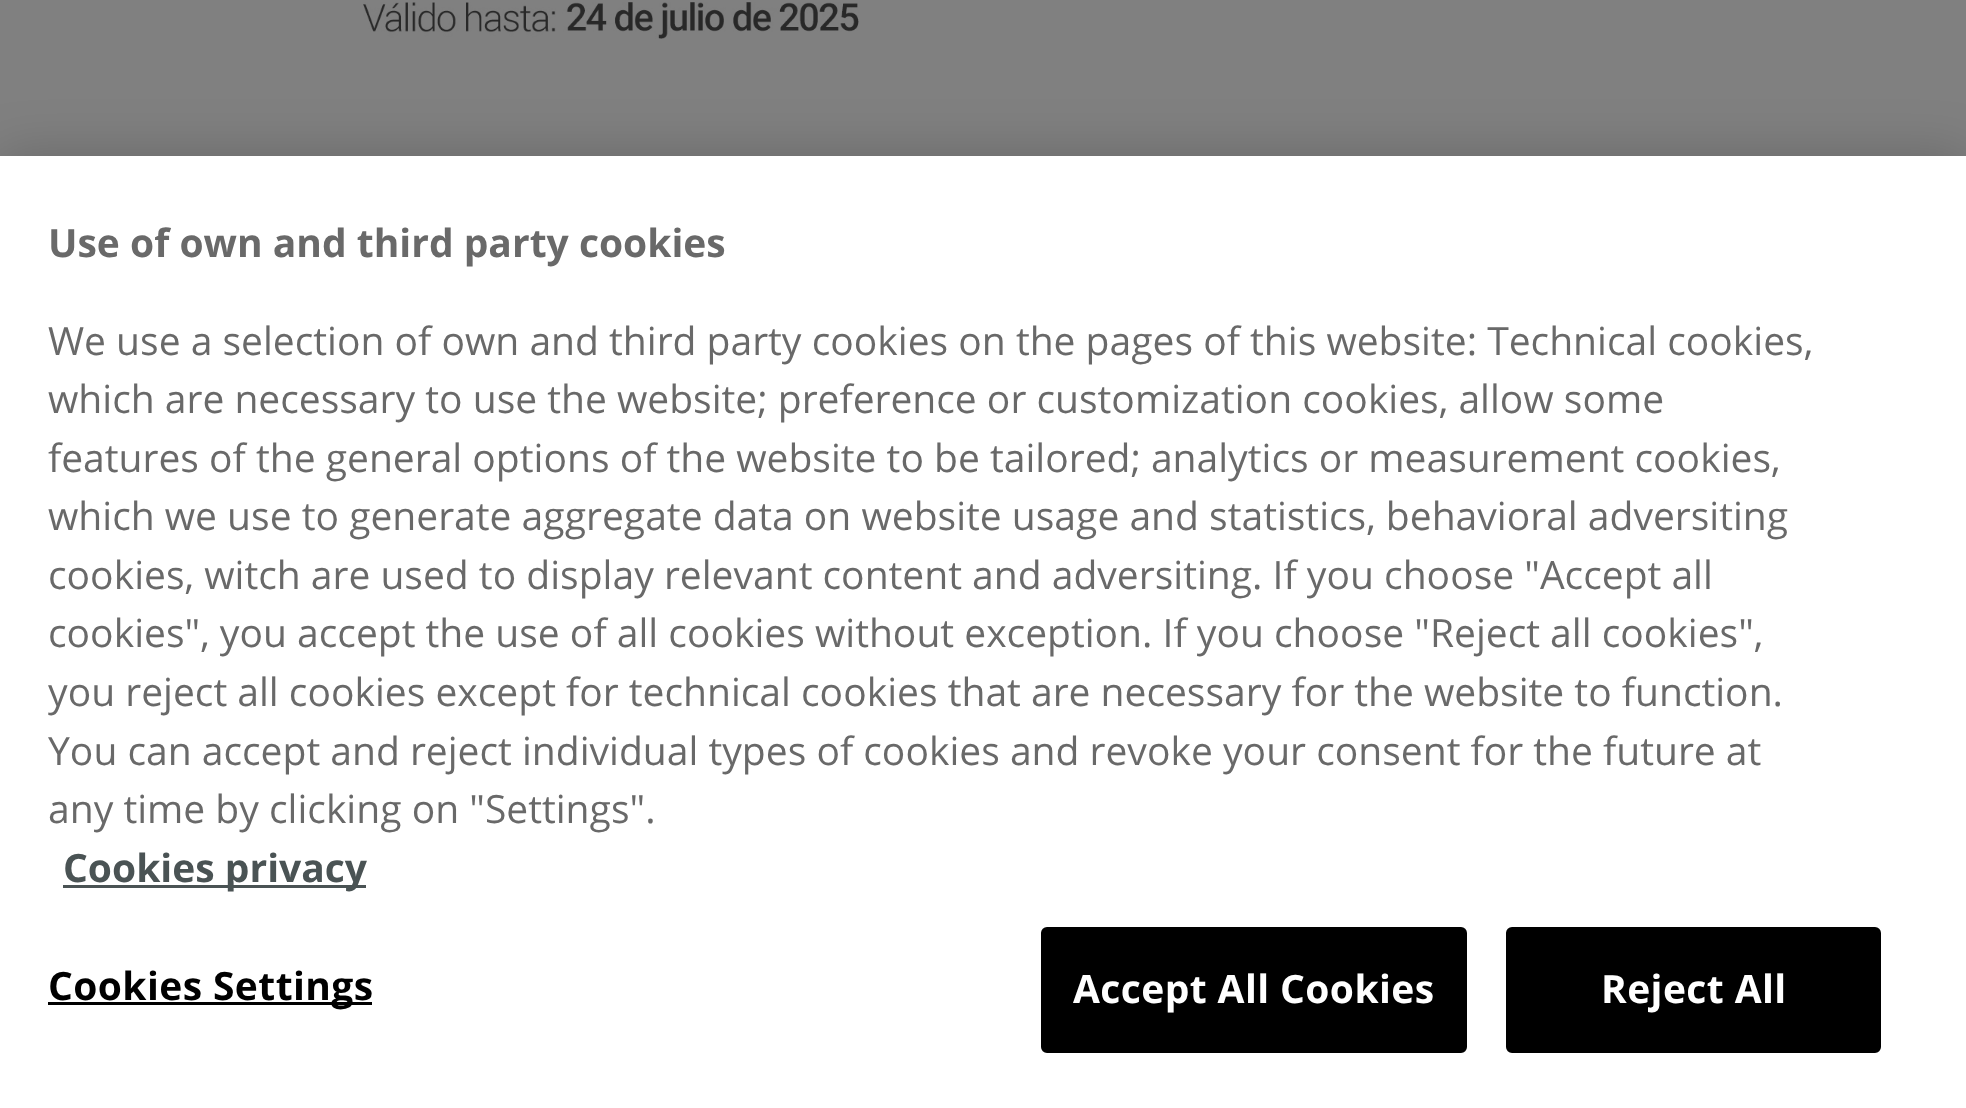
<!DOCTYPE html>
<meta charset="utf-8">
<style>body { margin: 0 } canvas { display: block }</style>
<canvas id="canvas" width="1966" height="1108"></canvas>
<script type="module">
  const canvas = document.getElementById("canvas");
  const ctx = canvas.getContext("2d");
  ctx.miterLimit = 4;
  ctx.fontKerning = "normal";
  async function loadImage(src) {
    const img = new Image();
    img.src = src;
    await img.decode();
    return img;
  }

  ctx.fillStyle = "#808080";
  ctx.fillRect(0, 0, 1966, 1108);
  ctx.drawImage(await loadImage("img1.png"), 363, 2, 496, 37);
  ctx.fillStyle = "rgba(0, 0, 0, 0.2)";
  ctx.filter = "blur(27px)";
  ctx.beginPath();
  ctx.rect(0, 156, 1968, 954);
  ctx.fill();
  ctx.filter = "none";
  ctx.fillStyle = "#ffffff";
  ctx.fillRect(0, 156, 1966, 952);
  ctx.font = "bold 39px Open Sans";
  ctx.fillStyle = "#696969";
  ctx.fillText("Use of own and third party cookies", 48, 257);
  ctx.font = "39px Open Sans";
  ctx.fillText("We use a selection of own and third party cookies on the pages of this website: Technical cookies,", 48, 355);
  ctx.fillText("which are necessary to use the website; preference or customization cookies, allow some", 48, 413);
  ctx.fillText("features of the general options of the website to be tailored; analytics or measurement cookies,", 48, 472);
  ctx.fillText("which we use to generate aggregate data on website usage and statistics, behavioral adversiting", 48, 530);
  ctx.fillText("cookies, witch are used to display relevant content and adversiting. If you choose \"Accept all", 48, 589);
  ctx.fillText("cookies\", you accept the use of all cookies without exception. If you choose \"Reject all cookies\",", 48, 647);
  ctx.fillText("you reject all cookies except for technical cookies that are necessary for the website to function.", 48, 706);
  ctx.fillText("You can accept and reject individual types of cookies and revoke your consent for the future at", 48, 765);
  ctx.fillText("any time by clicking on \"Settings\".", 48, 823);
  ctx.fillStyle = "#4a5354";
  ctx.fillRect(63, 885, 303, 3);
  ctx.font = "bold 39px Open Sans";
  ctx.fillText("Cookies privacy", 63, 882);
  ctx.fillStyle = "#000000";
  ctx.fillRect(48, 1002, 324, 3);
  ctx.letterSpacing = "0.4px";
  ctx.fillText("Cookies Settings", 48, 1000);
  ctx.beginPath();
  ctx.roundRect(1042.5, 928.5, 423, 123, 4.5);
  ctx.fill();
  ctx.strokeStyle = "#000000";
  ctx.lineWidth = 3;
  ctx.stroke();
  ctx.fillStyle = "#ffffff";
  ctx.fillText("Accept All Cookies", 1073, 1003);
  ctx.fillStyle = "#000000";
  ctx.beginPath();
  ctx.roundRect(1507.5, 928.5, 372, 123, 4.5);
  ctx.fill();
  ctx.stroke();
  ctx.fillStyle = "#ffffff";
  ctx.fillText("Reject All", 1601, 1003);
</script>
